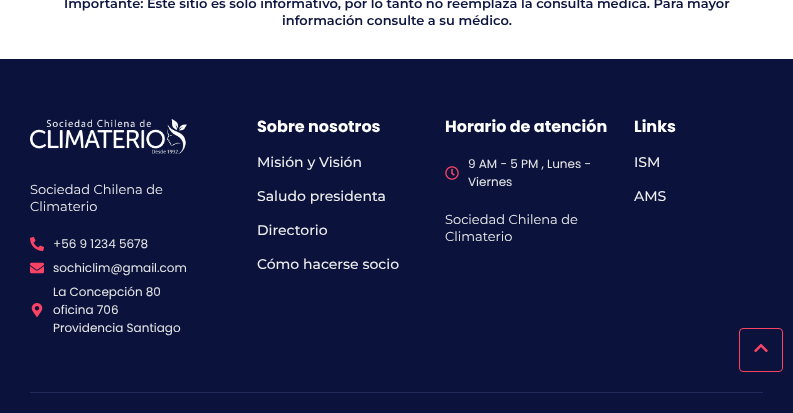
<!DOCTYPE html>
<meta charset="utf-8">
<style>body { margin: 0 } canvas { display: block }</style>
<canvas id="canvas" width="793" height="413"></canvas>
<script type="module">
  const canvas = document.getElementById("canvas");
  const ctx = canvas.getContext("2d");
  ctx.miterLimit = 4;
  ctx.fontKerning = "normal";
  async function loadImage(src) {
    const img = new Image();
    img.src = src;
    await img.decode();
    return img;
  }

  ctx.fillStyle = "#ffffff";
  ctx.fillRect(0, 0, 793, 413);
  ctx.font = "600 13px Montserrat";
  ctx.fillStyle = "#0c143f";
  ctx.fillText("Importante: Este sitio es solo informativo, por lo tanto no reemplaza la consulta médica. Para mayor", 64, 8);
  ctx.fillText("información consulte a su médico.", 282, 25);
  ctx.fillStyle = "#0b133c";
  ctx.fillRect(0, 59, 793, 354);
  ctx.drawImage(await loadImage("img1.png"), 30, 119, 157, 35);
  ctx.font = "13px Montserrat";
  ctx.fillStyle = "#f0f0f0";
  ctx.fillText("Sociedad Chilena de", 30, 194);
  ctx.fillText("Climaterio", 30, 211);
  ctx.drawImage(await loadImage("img2.png"), 30, 237, 14, 14);
  ctx.font = "12px Poppins";
  ctx.fillStyle = "#e7e7e7";
  ctx.fillText("+56 9 1234 5678", 53, 248);
  ctx.drawImage(await loadImage("img3.png"), 30, 262, 14, 12);
  ctx.fillText("sochiclim@gmail.com", 53, 272);
  ctx.drawImage(await loadImage("img4.png"), 31, 303, 12, 14);
  ctx.fillText("La Concepción 80", 53, 296);
  ctx.fillText("oficina 706", 53, 314);
  ctx.fillText("Providencia Santiago", 53, 332);
  ctx.font = "bold 16px Poppins";
  ctx.fillStyle = "#ffffff";
  ctx.fillText("Sobre nosotros", 257, 132);
  ctx.font = "500 14px Montserrat";
  ctx.fillStyle = "#f0f0f0";
  ctx.fillText("Misión y Visión", 257, 167);
  ctx.fillText("Saludo presidenta", 257, 201);
  ctx.fillText("Directorio", 257, 235);
  ctx.fillText("Cómo hacerse socio", 257, 269);
  ctx.font = "bold 16px Poppins";
  ctx.fillStyle = "#ffffff";
  ctx.fillText("Horario de atención", 445, 132);
  ctx.drawImage(await loadImage("img5.png"), 445, 166, 14, 14);
  ctx.font = "12px Poppins";
  ctx.fillStyle = "#e7e7e7";
  ctx.fillText("9 AM - 5 PM , Lunes -", 468, 168);
  ctx.fillText("Viernes", 468, 186);
  ctx.font = "13px Montserrat";
  ctx.fillStyle = "#f0f0f0";
  ctx.fillText("Sociedad Chilena de", 445, 224);
  ctx.fillText("Climaterio", 445, 241);
  ctx.font = "bold 16px Poppins";
  ctx.fillStyle = "#ffffff";
  ctx.fillText("Links", 634, 132);
  ctx.font = "500 14px Montserrat";
  ctx.fillStyle = "#f0f0f0";
  ctx.fillText("ISM", 634, 167);
  ctx.fillText("AMS", 634, 201);
  ctx.beginPath();
  ctx.roundRect(739.5, 328.5, 43, 43, 3.5);
  ctx.strokeStyle = "#f84365";
  ctx.stroke();
  ctx.drawImage(await loadImage("img6.png"), 754, 343, 14, 10);
  ctx.fillStyle = "#212a59";
  ctx.fillRect(30, 392, 733, 1);
</script>
